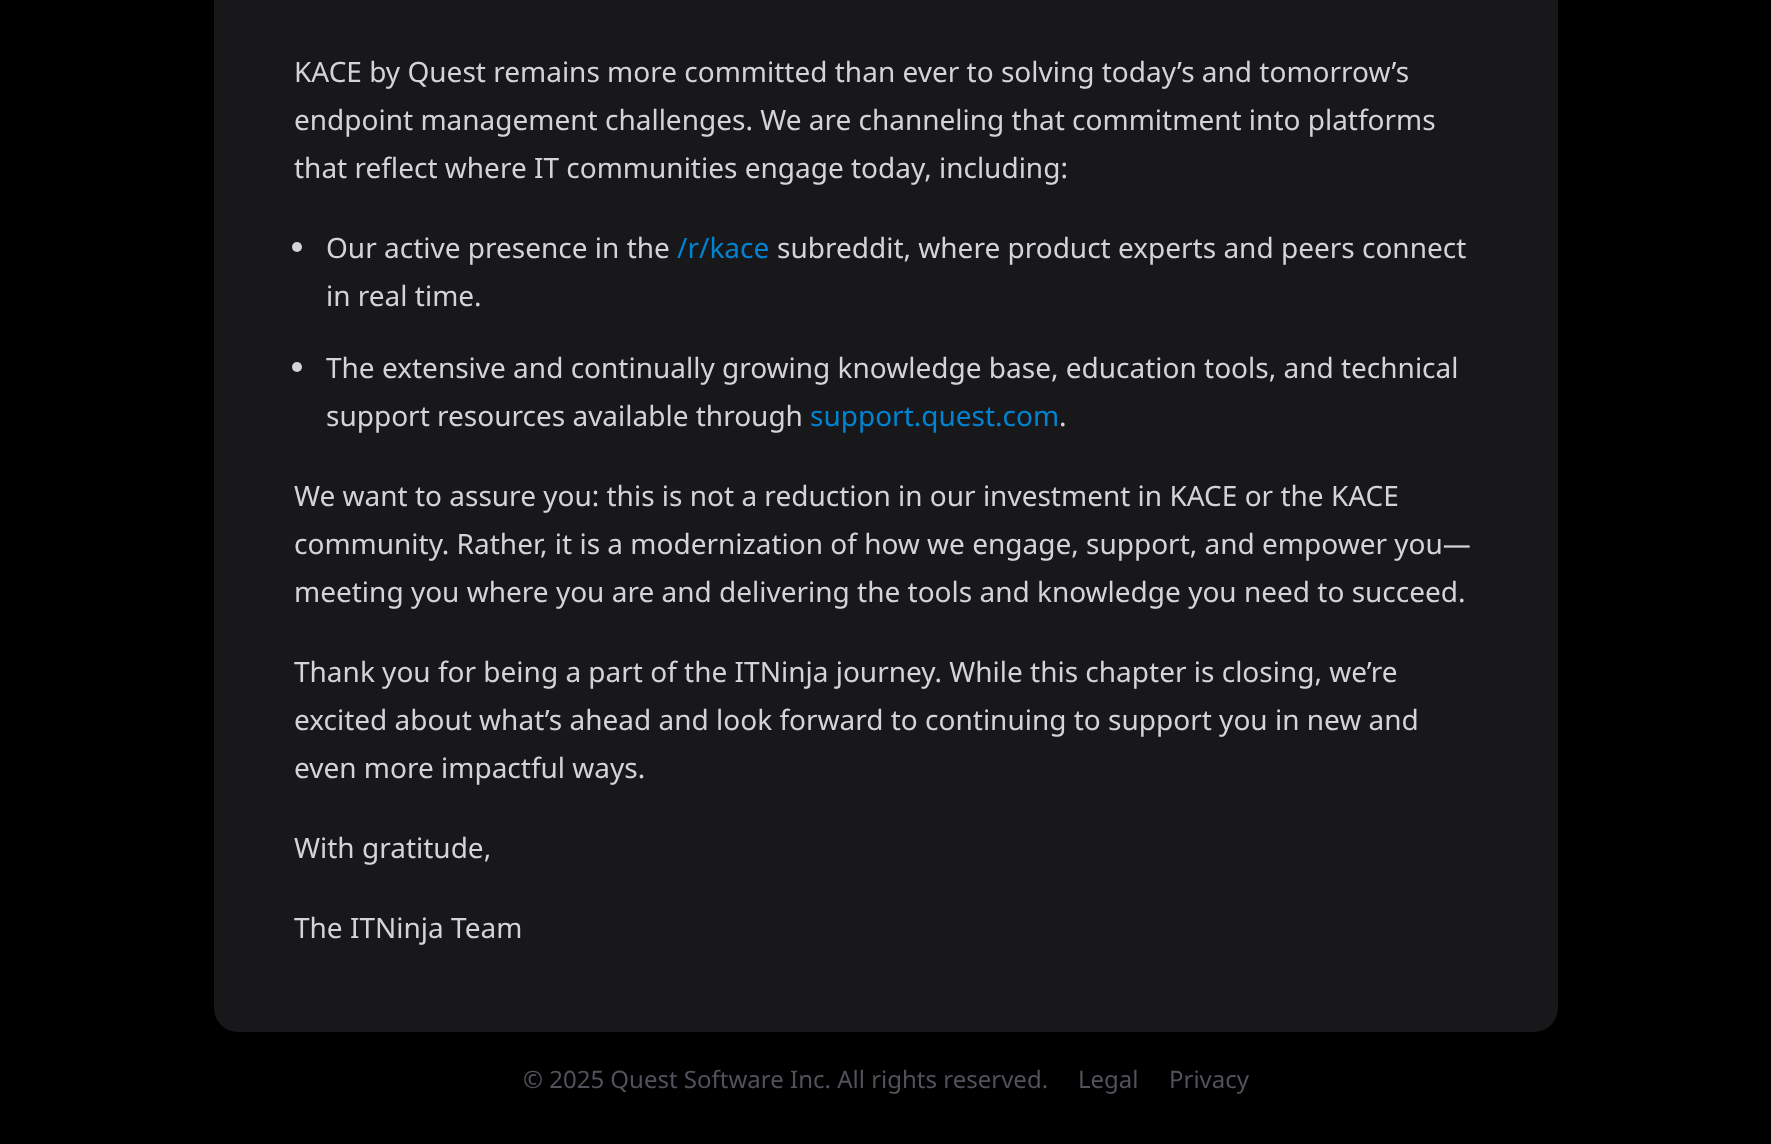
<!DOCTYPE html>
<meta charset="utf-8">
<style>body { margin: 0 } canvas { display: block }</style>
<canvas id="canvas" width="1771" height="1144"></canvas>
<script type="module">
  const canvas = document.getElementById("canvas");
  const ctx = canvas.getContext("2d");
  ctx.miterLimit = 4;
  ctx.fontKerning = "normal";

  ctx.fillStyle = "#000000";
  ctx.fillRect(0, 0, 1771, 1144);
  ctx.fillStyle = "#18181b";
  ctx.beginPath();
  ctx.roundRect(214, -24, 1344, 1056, 24);
  ctx.fill();
  ctx.font = "28px Noto Sans";
  ctx.fillStyle = "#d4d4d8";
  ctx.fillText("KACE by Quest remains more committed than ever to solving today’s and tomorrow’s", 294, 82);
  ctx.fillText("endpoint management challenges. We are channeling that commitment into platforms", 294, 130);
  ctx.fillText("that reflect where IT communities engage today, including:", 294, 178);
  ctx.beginPath();
  ctx.arc(297, 247, 5, 0, Math.PI * 2);
  ctx.fill();
  ctx.fillText("Our active presence in the", 326, 258);
  ctx.fillStyle = "#0084d1";
  ctx.fillText("/r/kace", 677, 258);
  ctx.fillStyle = "#d4d4d8";
  ctx.fillText("subreddit, where product experts and peers connect", 777, 258);
  ctx.fillText("in real time.", 326, 306);
  ctx.beginPath();
  ctx.arc(297, 367, 5, 0, Math.PI * 2);
  ctx.fill();
  ctx.fillText("The extensive and continually growing knowledge base, education tools, and technical", 326, 378);
  ctx.fillText("support resources available through", 326, 426);
  ctx.fillStyle = "#0084d1";
  ctx.fillText("support.quest.com", 810, 426);
  ctx.fillStyle = "#d4d4d8";
  ctx.fillText(".", 1059, 426);
  ctx.fillText("We want to assure you: this is not a reduction in our investment in KACE or the KACE", 294, 506);
  ctx.fillText("community. Rather, it is a modernization of how we engage, support, and empower you—", 294, 554);
  ctx.fillText("meeting you where you are and delivering the tools and knowledge you need to succeed.", 294, 602);
  ctx.fillText("Thank you for being a part of the ITNinja journey. While this chapter is closing, we’re", 294, 682);
  ctx.fillText("excited about what’s ahead and look forward to continuing to support you in new and", 294, 730);
  ctx.fillText("even more impactful ways.", 294, 778);
  ctx.fillText("With gratitude,", 294, 858);
  ctx.fillText("The ITNinja Team", 294, 938);
  ctx.font = "24px Noto Sans";
  ctx.fillStyle = "#52525c";
  ctx.fillText("© 2025 Quest Software Inc. All rights reserved.", 523, 1088);
  ctx.fillText("Legal", 1078, 1088);
  ctx.fillText("Privacy", 1169, 1088);
</script>
